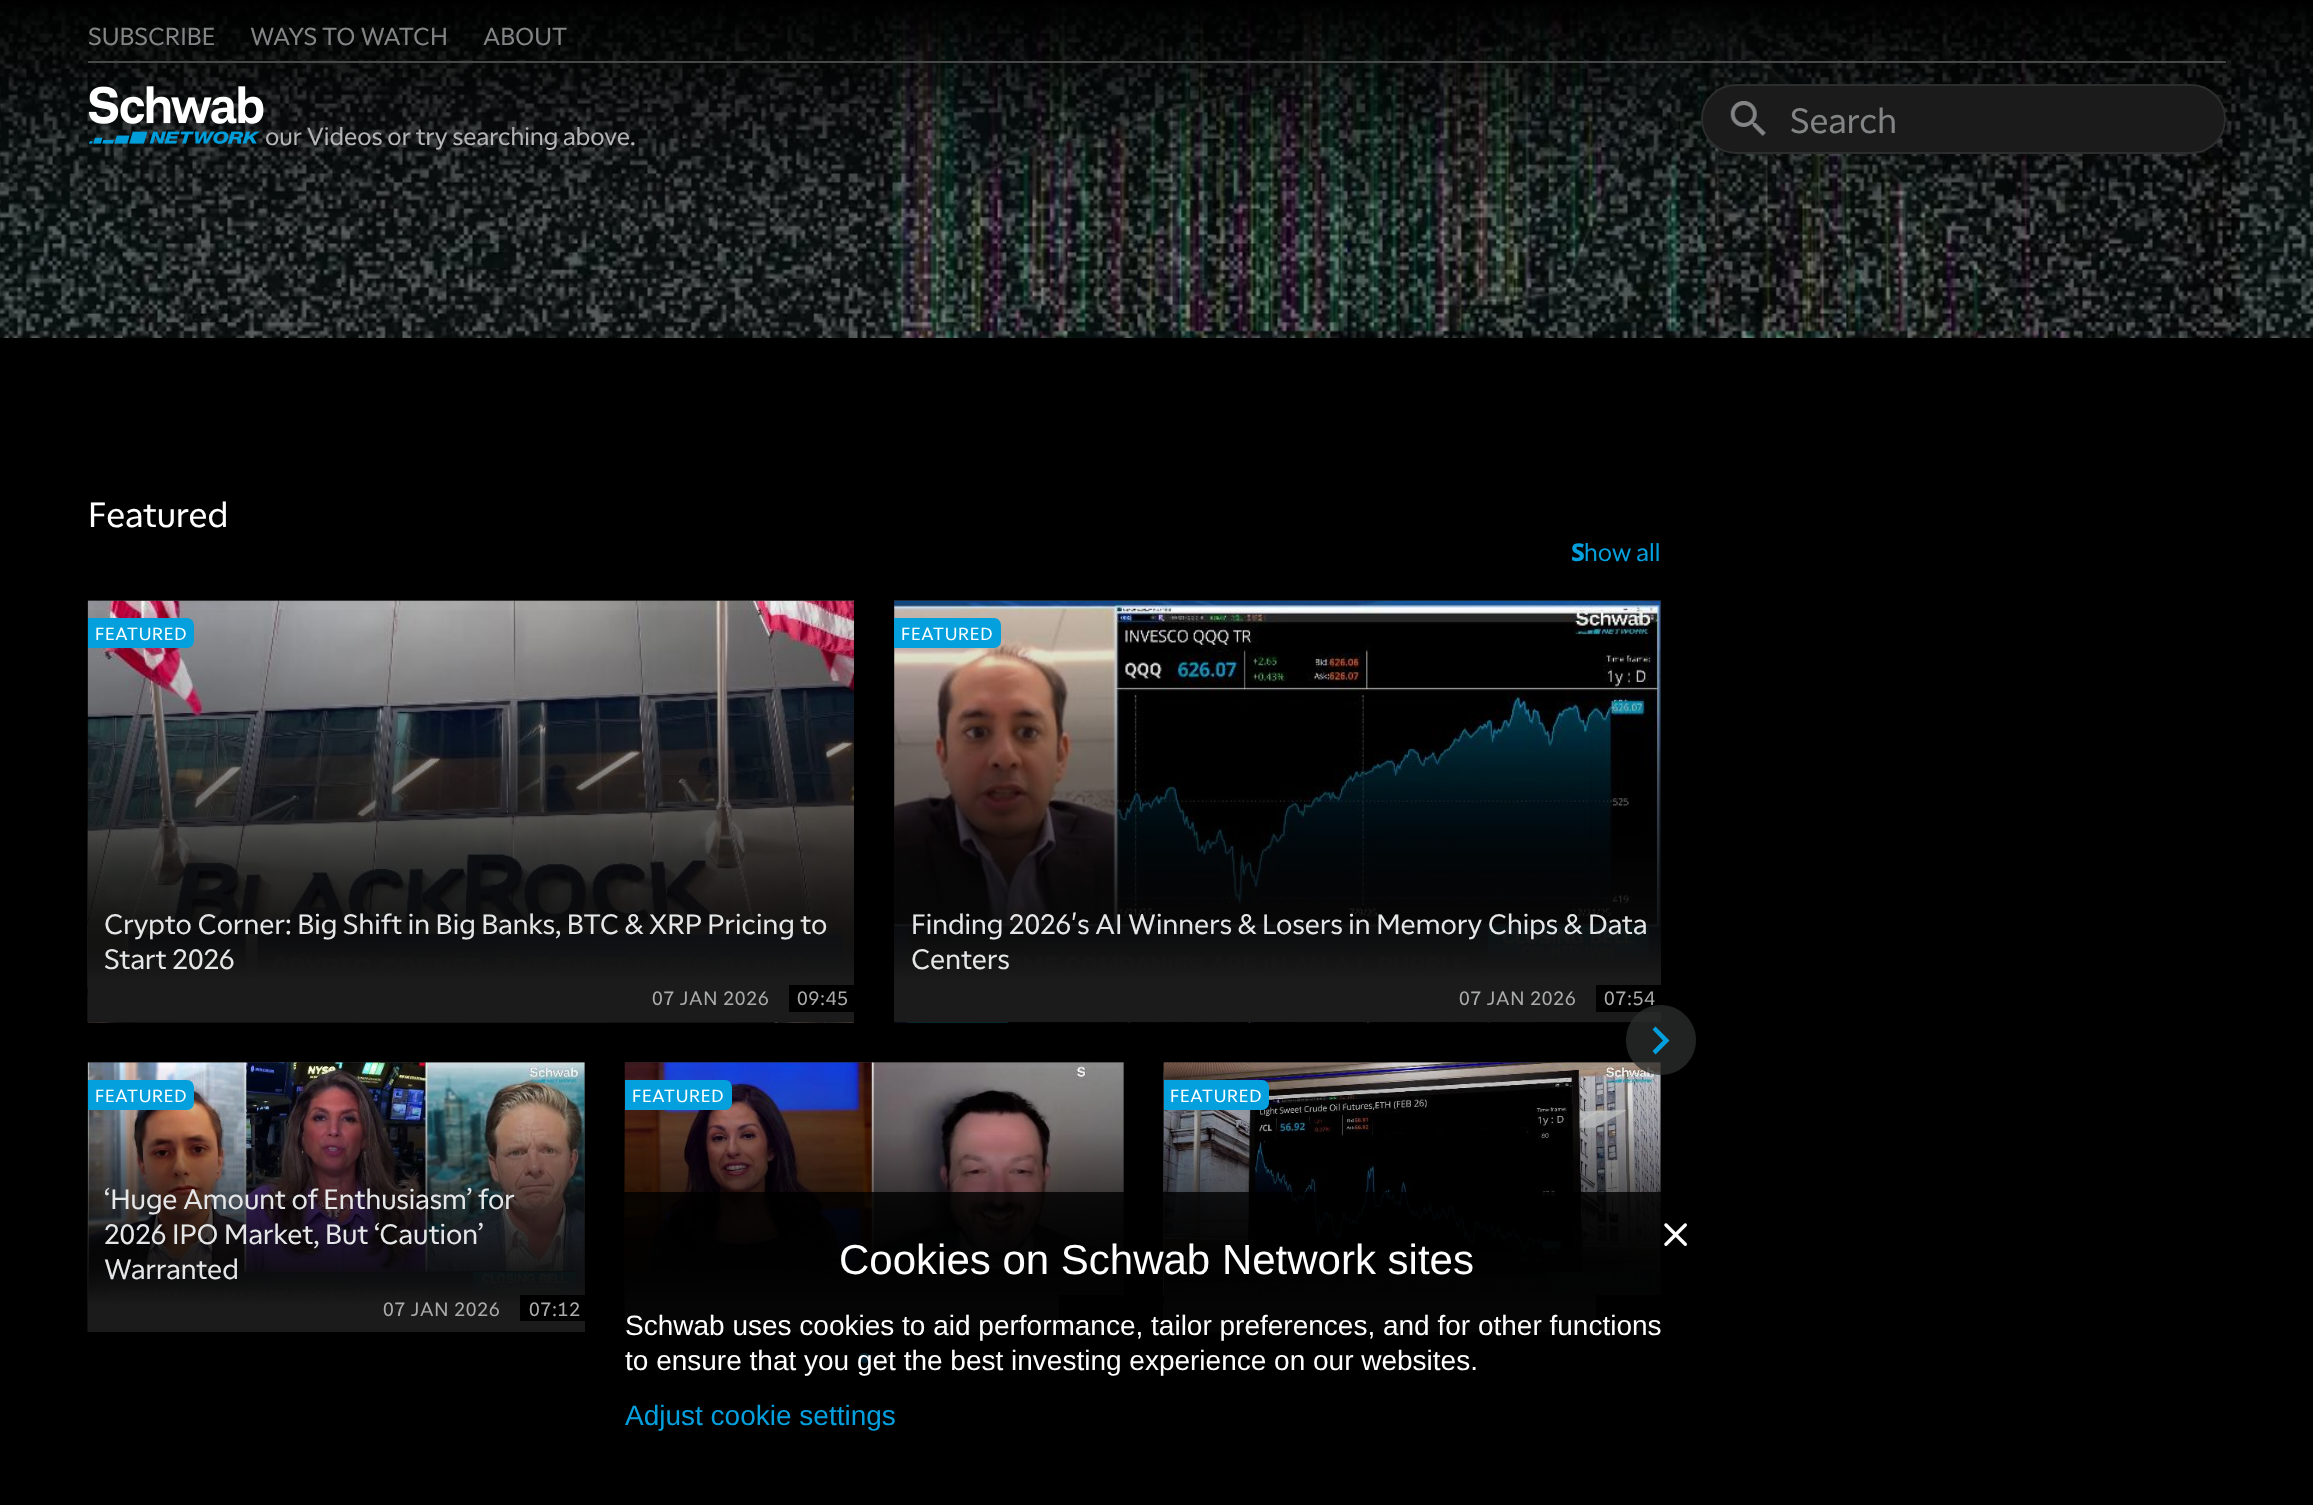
<!DOCTYPE html>
<meta charset="utf-8">
<style>body { margin: 0 } canvas { display: block }</style>
<canvas id="canvas" width="2313" height="1505"></canvas>
<script type="module">
  const canvas = document.getElementById("canvas");
  const ctx = canvas.getContext("2d");
  ctx.miterLimit = 4;
  ctx.fontKerning = "normal";
  async function loadImage(src) {
    const img = new Image();
    img.src = src;
    await img.decode();
    return img;
  }
  let gradient;

  ctx.fillStyle = "#000000";
  ctx.fillRect(0, 0, 2313, 1505);
  ctx.drawImage(await loadImage("img3.png"), 0, 1, 2313, 337);
  ctx.font = "24.5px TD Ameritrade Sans";
  ctx.fillStyle = "#ffffff";
  ctx.fillText("our Videos or try searching above.", 265, 145);
  gradient = ctx.createLinearGradient(1157, 0, 1157, 228);
  gradient.addColorStop(0, "#000000");
  gradient.addColorStop(0.52, "rgba(0, 0, 0, 0.36)");
  gradient.addColorStop(0.99, "rgba(0, 0, 0, 0)");
  ctx.fillStyle = gradient;
  ctx.fillRect(0, 1, 2313, 218);
  ctx.fillStyle = "#474848";
  ctx.fillRect(88, 61, 2138, 2);
  ctx.fillStyle = "#828485";
  ctx.fillText("SUBSCRIBE", 88, 45);
  ctx.fillText("WAYS TO WATCH", 250, 45);
  ctx.fillText("ABOUT", 483, 45);
  ctx.drawImage(await loadImage("img1.png"), 88, 86, 176, 58);
  ctx.fillStyle = "#1b1b1b";
  ctx.beginPath();
  ctx.roundRect(1702, 85, 523, 68, 34);
  ctx.fill();
  ctx.strokeStyle = "#2c2d2d";
  ctx.lineWidth = 2;
  ctx.stroke();
  ctx.drawImage(await loadImage("img2.png"), 1730, 101, 36, 35);
  ctx.font = "35px TD Ameritrade Sans";
  ctx.fillStyle = "#828485";
  ctx.fillText("Search", 1790, 133);
  ctx.fillStyle = "#ffffff";
  ctx.fillText("Featured", 88, 527);
  ctx.font = "800 24.5px Noto Sans";
  ctx.fillStyle = "#04a0de";
  ctx.fillText("S", 1571, 561);
  ctx.font = "24.5px TD Ameritrade Sans";
  ctx.fillText("how all", 1584, 561);
  ctx.fillStyle = "#272728";
  ctx.fillRect(88, 600, 766, 1);
  ctx.drawImage(await loadImage("img4.png"), 87, 600, 767, 423);
  gradient = ctx.createLinearGradient(471, 600, 471, 1022);
  gradient.addColorStop(0, "rgba(0, 0, 0, 0)");
  gradient.addColorStop(0.55, "rgba(0, 0, 0, 0.5)");
  gradient.addColorStop(0.9, "#1b1b1b");
  gradient.addColorStop(1, "#1b1b1b");
  ctx.fillStyle = gradient;
  ctx.fillRect(88, 610, 766, 369);
  gradient = ctx.createLinearGradient(471, 600, 471, 1022);
  gradient.addColorStop(0.25, "rgba(0, 0, 0, 0)");
  gradient.addColorStop(0.75, "rgba(0, 0, 0, 0.5)");
  gradient.addColorStop(0.9, "#1b1b1b");
  gradient.addColorStop(1, "#1b1b1b");
  ctx.fillStyle = gradient;
  ctx.fillRect(88, 715, 766, 307);
  ctx.fillStyle = "#04a0de";
  ctx.beginPath();
  ctx.roundRect(88, 618, 106, 30, [0, 7, 7, 0]);
  ctx.fill();
  ctx.letterSpacing = "0.75px";
  ctx.font = "17.5px TD Ameritrade Sans";
  ctx.fillStyle = "#ffffff";
  ctx.fillText("FEATURED", 95, 640);
  ctx.letterSpacing = "0px";
  ctx.font = "28px TD Ameritrade Sans";
  ctx.fillStyle = "#e5e6e7";
  ctx.fillText("Crypto Corner: Big Shift in Big Banks, BTC & XRP Pricing to", 104, 934);
  ctx.fillText("Start 2026", 104, 969);
  ctx.letterSpacing = "0.9px";
  ctx.font = "19.25px TD Ameritrade Sans";
  ctx.fillStyle = "#aaabac";
  ctx.fillText("07 JAN 2026", 652, 1005);
  ctx.fillStyle = "#000000";
  ctx.fillRect(789, 985, 65, 27);
  ctx.fillStyle = "#aaabac";
  ctx.fillText("09:45", 797, 1005);
  ctx.fillStyle = "#272728";
  ctx.fillRect(894, 600, 767, 378);
  ctx.drawImage(await loadImage("img5.png"), 894, 600, 767, 423);
  gradient = ctx.createLinearGradient(1278, 600, 1278, 1022);
  gradient.addColorStop(0, "rgba(0, 0, 0, 0)");
  gradient.addColorStop(0.55, "rgba(0, 0, 0, 0.5)");
  gradient.addColorStop(0.9, "#1b1b1b");
  gradient.addColorStop(1, "#1b1b1b");
  ctx.fillStyle = gradient;
  ctx.fillRect(894, 610, 767, 369);
  gradient = ctx.createLinearGradient(1278, 600, 1278, 1022);
  gradient.addColorStop(0.25, "rgba(0, 0, 0, 0)");
  gradient.addColorStop(0.75, "rgba(0, 0, 0, 0.5)");
  gradient.addColorStop(0.9, "#1b1b1b");
  gradient.addColorStop(1, "#1b1b1b");
  ctx.fillStyle = gradient;
  ctx.fillRect(894, 715, 767, 307);
  ctx.fillStyle = "#04a0de";
  ctx.beginPath();
  ctx.roundRect(894, 618, 107, 30, [0, 7, 7, 0]);
  ctx.fill();
  ctx.letterSpacing = "0.75px";
  ctx.font = "17.5px TD Ameritrade Sans";
  ctx.fillStyle = "#ffffff";
  ctx.fillText("FEATURED", 901, 640);
  ctx.letterSpacing = "0px";
  ctx.font = "28px TD Ameritrade Sans";
  ctx.fillStyle = "#e5e6e7";
  ctx.fillText("Finding 2026's AI Winners & Losers in Memory Chips & Data", 911, 934);
  ctx.fillText("Centers", 911, 969);
  ctx.letterSpacing = "0.9px";
  ctx.font = "19.25px TD Ameritrade Sans";
  ctx.fillStyle = "#aaabac";
  ctx.fillText("07 JAN 2026", 1459, 1005);
  ctx.fillStyle = "#000000";
  ctx.fillRect(1596, 985, 65, 27);
  ctx.fillStyle = "#aaabac";
  ctx.fillText("07:54", 1604, 1005);
  ctx.fillStyle = "#272728";
  ctx.fillRect(88, 1062, 497, 233);
  ctx.drawImage(await loadImage("img6.png"), 87, 1062, 498, 270);
  gradient = ctx.createLinearGradient(336, 1062, 336, 1332);
  gradient.addColorStop(0, "rgba(0, 0, 0, 0)");
  gradient.addColorStop(0.55, "rgba(0, 0, 0, 0.5)");
  gradient.addColorStop(0.9, "#1b1b1b");
  gradient.addColorStop(1, "#1b1b1b");
  ctx.fillStyle = gradient;
  ctx.fillRect(88, 1068, 497, 237);
  gradient = ctx.createLinearGradient(336, 1062, 336, 1332);
  gradient.addColorStop(0.25, "rgba(0, 0, 0, 0)");
  gradient.addColorStop(0.75, "rgba(0, 0, 0, 0.5)");
  gradient.addColorStop(0.9, "#1b1b1b");
  gradient.addColorStop(1, "#1b1b1b");
  ctx.fillStyle = gradient;
  ctx.fillRect(88, 1135, 497, 197);
  ctx.fillStyle = "#04a0de";
  ctx.beginPath();
  ctx.roundRect(88, 1080, 106, 30, [0, 7, 7, 0]);
  ctx.fill();
  ctx.letterSpacing = "0.75px";
  ctx.font = "17.5px TD Ameritrade Sans";
  ctx.fillStyle = "#ffffff";
  ctx.fillText("FEATURED", 95, 1102);
  ctx.letterSpacing = "0px";
  ctx.font = "28px TD Ameritrade Sans";
  ctx.fillStyle = "#e5e6e7";
  ctx.fillText("‘Huge Amount of Enthusiasm’ for", 104, 1209);
  ctx.fillText("2026 IPO Market, But ‘Caution’", 104, 1244);
  ctx.fillText("Warranted", 104, 1279);
  ctx.letterSpacing = "0.9px";
  ctx.font = "19.25px TD Ameritrade Sans";
  ctx.fillStyle = "#aaabac";
  ctx.fillText("07 JAN 2026", 383, 1316);
  ctx.fillStyle = "#000000";
  ctx.fillRect(520, 1295, 65, 26);
  ctx.fillStyle = "#aaabac";
  ctx.fillText("07:12", 529, 1316);
  ctx.fillStyle = "#272728";
  ctx.fillRect(625, 1062, 499, 233);
  ctx.drawImage(await loadImage("img7.png"), 624, 1062, 500, 270);
  gradient = ctx.createLinearGradient(874, 1062, 874, 1332);
  gradient.addColorStop(0, "rgba(0, 0, 0, 0)");
  gradient.addColorStop(0.55, "rgba(0, 0, 0, 0.5)");
  gradient.addColorStop(0.9, "#1b1b1b");
  gradient.addColorStop(1, "#1b1b1b");
  ctx.fillStyle = gradient;
  ctx.fillRect(625, 1068, 499, 237);
  gradient = ctx.createLinearGradient(874, 1062, 874, 1332);
  gradient.addColorStop(0.25, "rgba(0, 0, 0, 0)");
  gradient.addColorStop(0.75, "rgba(0, 0, 0, 0.5)");
  gradient.addColorStop(0.9, "#1b1b1b");
  gradient.addColorStop(1, "#1b1b1b");
  ctx.fillStyle = gradient;
  ctx.fillRect(625, 1135, 499, 197);
  ctx.fillStyle = "#04a0de";
  ctx.beginPath();
  ctx.roundRect(625, 1080, 107, 30, [0, 7, 7, 0]);
  ctx.fill();
  ctx.letterSpacing = "0.75px";
  ctx.font = "17.5px TD Ameritrade Sans";
  ctx.fillStyle = "#ffffff";
  ctx.fillText("FEATURED", 632, 1102);
  ctx.fillStyle = "#000000";
  ctx.fillRect(1059, 1295, 65, 26);
  ctx.fillStyle = "#272728";
  ctx.fillRect(1164, 1062, 497, 233);
  ctx.drawImage(await loadImage("img8.png"), 1163, 1062, 498, 270);
  gradient = ctx.createLinearGradient(1412, 1062, 1412, 1332);
  gradient.addColorStop(0, "rgba(0, 0, 0, 0)");
  gradient.addColorStop(0.55, "rgba(0, 0, 0, 0.5)");
  gradient.addColorStop(0.9, "#1b1b1b");
  gradient.addColorStop(1, "#1b1b1b");
  ctx.fillStyle = gradient;
  ctx.fillRect(1164, 1068, 497, 237);
  gradient = ctx.createLinearGradient(1412, 1062, 1412, 1332);
  gradient.addColorStop(0.25, "rgba(0, 0, 0, 0)");
  gradient.addColorStop(0.75, "rgba(0, 0, 0, 0.5)");
  gradient.addColorStop(0.9, "#1b1b1b");
  gradient.addColorStop(1, "#1b1b1b");
  ctx.fillStyle = gradient;
  ctx.fillRect(1164, 1135, 497, 197);
  ctx.fillStyle = "#04a0de";
  ctx.beginPath();
  ctx.roundRect(1164, 1080, 105, 30, [0, 7, 7, 0]);
  ctx.fill();
  ctx.fillStyle = "#ffffff";
  ctx.fillText("FEATURED", 1170, 1102);
  ctx.fillStyle = "#000000";
  ctx.fillRect(1596, 1295, 65, 26);
  ctx.fillStyle = "rgba(44, 45, 45, 0.75)";
  ctx.beginPath();
  ctx.moveTo(1626, 1040);
  ctx.bezierCurveTo(1626, 1021, 1641, 1005, 1661, 1005);
  ctx.bezierCurveTo(1680, 1005, 1696, 1021, 1696, 1040);
  ctx.bezierCurveTo(1696, 1060, 1680, 1075, 1661, 1075);
  ctx.bezierCurveTo(1641, 1075, 1626, 1060, 1626, 1040);
  ctx.closePath();
  ctx.fill();
  ctx.fillStyle = "#04a0de";
  ctx.beginPath();
  ctx.moveTo(1652.5, 1051);
  ctx.lineTo(1663, 1040.5);
  ctx.lineTo(1652.5, 1029.5);
  ctx.lineTo(1655.5, 1026.5);
  ctx.lineTo(1669.5, 1040.5);
  ctx.lineTo(1655.5, 1054.5);
  ctx.closePath();
  ctx.fill();
  ctx.beginPath();
  ctx.roundRect(859, 1353, 11, 10, 5);
  ctx.fill();
  ctx.fillStyle = "#2c2d2d";
  ctx.beginPath();
  ctx.roundRect(880, 1353, 11, 10, 5);
  ctx.fill();
  ctx.fillStyle = "rgba(0, 0, 0, 0.8)";
  ctx.beginPath();
  ctx.roundRect(597, 1192, 1120, 271, 4);
  ctx.fill();
  ctx.drawImage(await loadImage("img9.png"), 1664, 1223, 23, 23);
  ctx.letterSpacing = "0px";
  ctx.font = "42px Liberation Sans";
  ctx.fillStyle = "#ffffff";
  ctx.fillText("Cookies on Schwab Network sites", 839, 1274);
  ctx.font = "28px Liberation Sans";
  ctx.fillText("Schwab uses cookies to aid performance, tailor preferences, and for other functions", 625, 1335);
  ctx.fillText("to ensure that you get the best investing experience on our websites.", 625, 1370);
  ctx.fillStyle = "#04a0de";
  ctx.fillText("Adjust cookie settings", 625, 1425);
</script>
